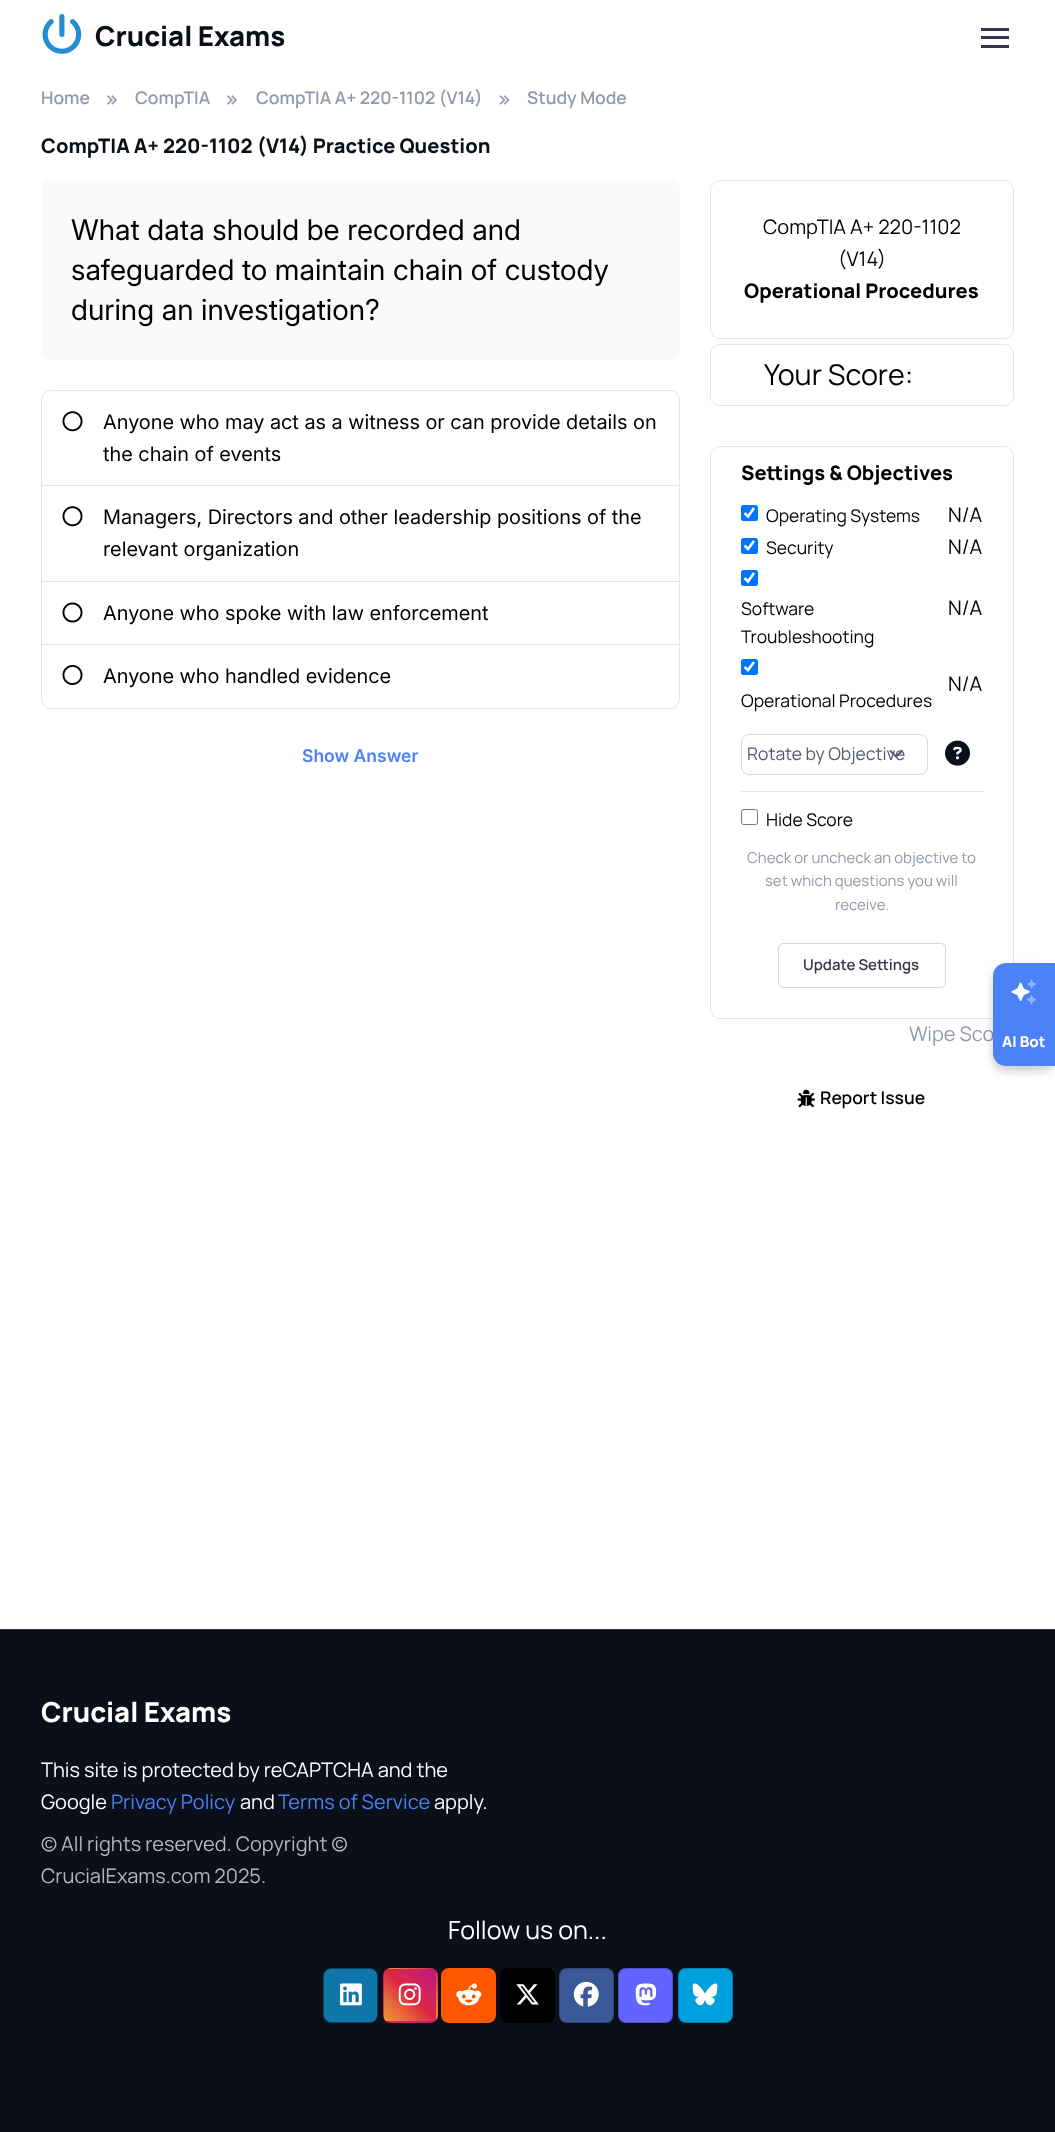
<!DOCTYPE html>
<meta charset="utf-8">
<style>body { margin: 0 } canvas { display: block }</style>
<canvas id="canvas" width="1055" height="2132"></canvas>
<script type="module">
  const canvas = document.getElementById("canvas");
  const ctx = canvas.getContext("2d");
  ctx.miterLimit = 4;
  ctx.fontKerning = "normal";
  async function loadImage(src) {
    const img = new Image();
    img.src = src;
    await img.decode();
    return img;
  }
  let gradient;

  ctx.fillStyle = "#ffffff";
  ctx.fillRect(0, 0, 1055, 2132);
  ctx.drawImage(await loadImage("img1.png"), 42, 13, 40, 41);
  ctx.font = "800 27.5px Manrope";
  ctx.fillStyle = "#0b0f19";
  ctx.fillText("Crucial Exams", 95, 46);
  ctx.fillStyle = "#33354d";
  ctx.fillRect(981, 36, 28, 3);
  ctx.fillRect(981, 28, 28, 3);
  ctx.fillRect(981, 45, 28, 3);
  ctx.font = "600 17.5px Manrope";
  ctx.fillStyle = "#9397ad";
  ctx.fillText("Home", 41, 104);
  ctx.drawImage(await loadImage("img2.png"), 107, 95, 10, 10);
  ctx.fillText("CompTIA", 135, 104);
  ctx.drawImage(await loadImage("img2.png"), 227, 95, 10, 10);
  ctx.fillText("CompTIA A+ 220-1102 (V14)", 256, 104);
  ctx.drawImage(await loadImage("img3.png"), 499, 95, 11, 10);
  ctx.fillText("Study Mode", 527, 104);
  ctx.font = "800 20px Manrope";
  ctx.fillStyle = "#0b0f19";
  ctx.fillText("CompTIA A+ 220-1102 (V14) Practice Question", 41, 153);
  ctx.fillStyle = "#fafafb";
  ctx.beginPath();
  ctx.roundRect(41, 180, 639, 180, 8);
  ctx.fill();
  ctx.font = "28.7px Inter";
  ctx.fillStyle = "#000000";
  ctx.fillText("What data should be recorded and", 71, 240);
  ctx.fillText("safeguarded to maintain chain of custody", 71, 280);
  ctx.fillText("during an investigation?", 71, 320);
  ctx.beginPath();
  ctx.roundRect(41.5, 390.5, 638, 95, [9.5, 9.5, 0, 0]);
  ctx.strokeStyle = "#e2e5f1";
  ctx.stroke();
  ctx.drawImage(await loadImage("img4.png"), 62, 411, 21, 21);
  ctx.font = "20px 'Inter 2'";
  ctx.fillText("Anyone who may act as a witness or can provide details on", 103, 429);
  ctx.fillText("the chain of events", 103, 461);
  ctx.fillStyle = "#e2e5f1";
  ctx.fillRect(679, 486, 1, 159);
  ctx.fillRect(41, 581, 639, 1);
  ctx.fillRect(41, 486, 1, 97);
  ctx.drawImage(await loadImage("img4.png"), 62, 506, 21, 21);
  ctx.fillStyle = "#000000";
  ctx.fillText("Managers, Directors and other leadership positions of the", 103, 524);
  ctx.fillText("relevant organization", 103, 556);
  ctx.fillStyle = "#e2e5f1";
  ctx.fillRect(41, 644, 639, 1);
  ctx.fillRect(41, 583, 1, 62);
  ctx.drawImage(await loadImage("img5.png"), 62, 602, 21, 21);
  ctx.fillStyle = "#000000";
  ctx.fillText("Anyone who spoke with law enforcement", 103, 620);
  ctx.fillStyle = "#e2e5f1";
  ctx.beginPath();
  ctx.moveTo(41, 645);
  ctx.lineTo(680, 645);
  ctx.lineTo(680, 699);
  ctx.bezierCurveTo(680, 704, 676, 709, 670, 709);
  ctx.lineTo(51, 709);
  ctx.bezierCurveTo(46, 709, 41, 704, 41, 699);
  ctx.closePath();
  ctx.moveTo(42, 645);
  ctx.lineTo(679, 645);
  ctx.lineTo(679, 699);
  ctx.bezierCurveTo(679, 704, 675, 708, 670, 708);
  ctx.lineTo(51, 708);
  ctx.bezierCurveTo(46, 708, 42, 704, 42, 699);
  ctx.closePath();
  ctx.fill("evenodd");
  ctx.drawImage(await loadImage("img6.png"), 62, 665, 21, 20);
  ctx.fillStyle = "#000000";
  ctx.fillText("Anyone who handled evidence", 103, 683);
  ctx.font = "600 17.5px Inter";
  ctx.fillStyle = "#4c82f7";
  ctx.fillText("Show Answer", 302, 762);
  ctx.beginPath();
  ctx.roundRect(710.5, 180.5, 303, 158, 9.5);
  ctx.stroke();
  ctx.font = "20px Manrope";
  ctx.fillStyle = "#000000";
  ctx.fillText("CompTIA A+ 220-1102", 763, 234);
  ctx.fillText("(V14)", 838, 266);
  ctx.font = "800 20px Manrope";
  ctx.fillText("Operational Procedures", 744, 298);
  ctx.beginPath();
  ctx.roundRect(710.5, 344.5, 303, 61, 9.5);
  ctx.stroke();
  ctx.font = "28.7px Manrope";
  ctx.fillText("Your Score:", 764, 385);
  ctx.beginPath();
  ctx.roundRect(710.5, 446.5, 303, 572, 9.5);
  ctx.stroke();
  ctx.font = "800 20px Manrope";
  ctx.fillText("Settings & Objectives", 741, 480);
  ctx.fillStyle = "#0075ff";
  ctx.beginPath();
  ctx.roundRect(741, 505, 17, 16, 2.5);
  ctx.fill();
  ctx.beginPath();
  ctx.moveTo(744.5, 513);
  ctx.lineTo(748, 516.5);
  ctx.lineTo(754, 508);
  ctx.strokeStyle = "#ffffff";
  ctx.lineWidth = 2.6;
  ctx.stroke();
  ctx.font = "17.5px Manrope";
  ctx.fillStyle = "#000000";
  ctx.fillText("Operating Systems", 766, 522);
  ctx.font = "20px Manrope";
  ctx.fillText("N/A", 948, 522);
  ctx.fillStyle = "#0075ff";
  ctx.beginPath();
  ctx.roundRect(741, 538, 17, 16, 2.5);
  ctx.fill();
  ctx.beginPath();
  ctx.moveTo(744.5, 545.5);
  ctx.lineTo(748, 549);
  ctx.lineTo(754, 541);
  ctx.stroke();
  ctx.font = "17.5px Manrope";
  ctx.fillStyle = "#000000";
  ctx.fillText("Security", 766, 554);
  ctx.font = "20px Manrope";
  ctx.fillText("N/A", 948, 554);
  ctx.fillStyle = "#0075ff";
  ctx.beginPath();
  ctx.roundRect(741, 570, 17, 16, 2.5);
  ctx.fill();
  ctx.beginPath();
  ctx.moveTo(744.5, 578);
  ctx.lineTo(748, 581.5);
  ctx.lineTo(754, 573);
  ctx.stroke();
  ctx.font = "17.5px Manrope";
  ctx.fillStyle = "#000000";
  ctx.fillText("Software", 741, 615);
  ctx.fillText("Troubleshooting", 741, 643);
  ctx.font = "20px Manrope";
  ctx.fillText("N/A", 948, 615);
  ctx.fillText("N/A", 948, 691);
  ctx.fillStyle = "#0075ff";
  ctx.beginPath();
  ctx.roundRect(741, 659, 17, 16, 2.5);
  ctx.fill();
  ctx.beginPath();
  ctx.moveTo(744.5, 667);
  ctx.lineTo(748, 670);
  ctx.lineTo(754, 662);
  ctx.stroke();
  ctx.font = "17.5px Manrope";
  ctx.fillStyle = "#000000";
  ctx.fillText("Operational Procedures", 741, 707);
  ctx.beginPath();
  ctx.moveTo(890.5, 751);
  ctx.lineTo(896, 756.5);
  ctx.lineTo(902, 751);
  ctx.strokeStyle = "#565973";
  ctx.lineWidth = 1.9;
  ctx.lineCap = "round";
  ctx.lineJoin = "round";
  ctx.stroke();
  ctx.beginPath();
  ctx.roundRect(741.5, 734.5, 186, 40, 7.5);
  ctx.strokeStyle = "#d4d7e5";
  ctx.lineWidth = 1;
  ctx.lineJoin = "miter";
  ctx.stroke();
  ctx.fillStyle = "#565973";
  ctx.fillText("Rotate by Objective", 747, 760);
  ctx.drawImage(await loadImage("img7.png"), 945, 740, 25, 26);
  ctx.fillStyle = "#e2e5f1";
  ctx.fillRect(741, 791, 242, 1);
  ctx.beginPath();
  ctx.roundRect(741.5, 809.5, 16, 15, 2);
  ctx.strokeStyle = "#767676";
  ctx.stroke();
  ctx.fillStyle = "#000000";
  ctx.fillText("Hide Score", 766, 826);
  ctx.font = "15px Manrope";
  ctx.fillStyle = "#9397ad";
  ctx.fillText("Check or uncheck an objective to", 747, 863);
  ctx.fillText("set which questions you will", 765, 886);
  ctx.fillText("receive.", 835, 910);
  ctx.beginPath();
  ctx.roundRect(778.5, 943.5, 167, 44, 4.5);
  ctx.strokeStyle = "#d4d7e5";
  ctx.stroke();
  ctx.font = "600 15px Manrope";
  ctx.fillStyle = "#33354d";
  ctx.fillText("Update Settings", 803, 970);
  ctx.font = "20px Manrope";
  ctx.fillStyle = "#9397ad";
  ctx.fillText("Wipe Sco", 909, 1041);
  ctx.drawImage(await loadImage("img8.png"), 797, 1089, 18, 19);
  ctx.font = "600 17.5px Manrope";
  ctx.fillStyle = "#000000";
  ctx.fillText("Report Issue", 820, 1104);
  ctx.fillStyle = "rgba(0, 0, 0, 0.2)";
  ctx.filter = "blur(5px)";
  ctx.beginPath();
  ctx.roundRect(993, 968, 62, 103, 13);
  ctx.fill();
  ctx.filter = "none";
  ctx.fillStyle = "#4c82f7";
  ctx.beginPath();
  ctx.roundRect(993, 963, 62, 103, [13, 0, 0, 13]);
  ctx.fill();
  ctx.drawImage(await loadImage("img9.png"), 1011, 982, 19, 20);
  ctx.drawImage(await loadImage("img10.png"), 1027, 979, 10, 26);
  ctx.font = "800 15px Manrope";
  ctx.fillStyle = "#ffffff";
  ctx.fillText("AI Bot", 1002, 1047);
  ctx.fillStyle = "#0b0f19";
  ctx.fillRect(0, 1630, 1055, 502);
  ctx.fillStyle = "#2d3139";
  ctx.fillRect(0, 1629, 1055, 1);
  ctx.font = "800 27.5px Manrope";
  ctx.fillStyle = "#ffffff";
  ctx.fillText("Crucial Exams", 41, 1722);
  ctx.font = "20px Manrope";
  ctx.fillText("This site is protected by reCAPTCHA and the", 41, 1777);
  ctx.fillText("Google", 41, 1809);
  ctx.fillStyle = "#4c82f7";
  ctx.fillText("Privacy Policy", 111, 1809);
  ctx.fillStyle = "#ffffff";
  ctx.fillText("and", 240, 1809);
  ctx.fillStyle = "#4c82f7";
  ctx.fillText("Terms of Service", 278, 1809);
  ctx.fillStyle = "#ffffff";
  ctx.fillText("apply.", 434, 1809);
  ctx.fillStyle = "#b6b7ba";
  ctx.fillText("© All rights reserved. Copyright ©", 41, 1851);
  ctx.fillText("CrucialExams.com 2025.", 41, 1883);
  ctx.font = "25px Manrope";
  ctx.fillStyle = "#ffffff";
  ctx.fillText("Follow us on...", 448, 1939);
  ctx.fillStyle = "#0e76a8";
  ctx.beginPath();
  ctx.roundRect(323.5, 1968.5, 54, 54, 7.5);
  ctx.fill();
  ctx.strokeStyle = "#084461";
  ctx.stroke();
  ctx.drawImage(await loadImage("img11.png"), 340, 1983, 22, 23);
  ctx.save();
  ctx.beginPath();
  ctx.roundRect(383, 1968, 55, 55, 8);
  ctx.clip();
  gradient = ctx.createLinearGradient(384, 1969, 436, 1916);
  gradient.addColorStop(0, "#f09433");
  gradient.addColorStop(0.25, "#e6683c");
  gradient.addColorStop(0.5, "#dc2743");
  gradient.addColorStop(0.75, "#cc2366");
  gradient.addColorStop(1, "#bc1888");
  ctx.fillStyle = gradient;
  ctx.fillRect(384, 1968, 52, 1);
  gradient = ctx.createLinearGradient(331, 2021, 384, 1969);
  gradient.addColorStop(0, "#f09433");
  gradient.addColorStop(0.25, "#e6683c");
  gradient.addColorStop(0.5, "#dc2743");
  gradient.addColorStop(0.75, "#cc2366");
  gradient.addColorStop(1, "#bc1888");
  ctx.fillStyle = gradient;
  ctx.fillRect(383, 1969, 1, 52);
  gradient = ctx.createLinearGradient(384, 2021, 436, 1969);
  gradient.addColorStop(0, "#f09433");
  gradient.addColorStop(0.25, "#e6683c");
  gradient.addColorStop(0.5, "#dc2743");
  gradient.addColorStop(0.75, "#cc2366");
  gradient.addColorStop(1, "#bc1888");
  ctx.fillStyle = gradient;
  ctx.fillRect(384, 1969, 52, 52);
  gradient = ctx.createLinearGradient(436, 2021, 489, 1969);
  gradient.addColorStop(0, "#f09433");
  gradient.addColorStop(0.25, "#e6683c");
  gradient.addColorStop(0.5, "#dc2743");
  gradient.addColorStop(0.75, "#cc2366");
  gradient.addColorStop(1, "#bc1888");
  ctx.fillStyle = gradient;
  ctx.fillRect(436, 1969, 2, 52);
  gradient = ctx.createLinearGradient(384, 2074, 436, 2021);
  gradient.addColorStop(0, "#f09433");
  gradient.addColorStop(0.25, "#e6683c");
  gradient.addColorStop(0.5, "#dc2743");
  gradient.addColorStop(0.75, "#cc2366");
  gradient.addColorStop(1, "#bc1888");
  ctx.fillStyle = gradient;
  ctx.fillRect(384, 2021, 52, 2);
  ctx.restore();
  ctx.drawImage(await loadImage("img12.png"), 398, 1983, 23, 23);
  ctx.fillStyle = "#ff5700";
  ctx.beginPath();
  ctx.roundRect(441, 1968, 55, 55, 8);
  ctx.fill();
  ctx.drawImage(await loadImage("img13.png"), 456, 1983, 26, 23);
  ctx.fillStyle = "#000000";
  ctx.beginPath();
  ctx.roundRect(500, 1968, 55, 55, 8);
  ctx.fill();
  ctx.drawImage(await loadImage("img14.png"), 516, 1984, 23, 21);
  ctx.fillStyle = "#3b5998";
  ctx.beginPath();
  ctx.roundRect(559, 1968, 55, 55, 8);
  ctx.fill();
  ctx.beginPath();
  ctx.roundRect(559.5, 1968.5, 54, 54, 7.5);
  ctx.strokeStyle = "rgba(0, 0, 0, 0.2)";
  ctx.stroke();
  ctx.drawImage(await loadImage("img15.png"), 573, 1981, 26, 26);
  ctx.fillStyle = "#6364ff";
  ctx.beginPath();
  ctx.roundRect(618, 1968, 55, 55, 8);
  ctx.fill();
  ctx.beginPath();
  ctx.roundRect(618.5, 1968.5, 54, 54, 7.5);
  ctx.stroke();
  ctx.drawImage(await loadImage("img16.png"), 635, 1983, 22, 23);
  ctx.fillStyle = "#00a0dc";
  ctx.beginPath();
  ctx.roundRect(678, 1968, 55, 55, 8);
  ctx.fill();
  ctx.beginPath();
  ctx.roundRect(678.5, 1968.5, 54, 54, 7.5);
  ctx.stroke();
  ctx.drawImage(await loadImage("img17.png"), 692, 1983, 26, 23);
</script>
